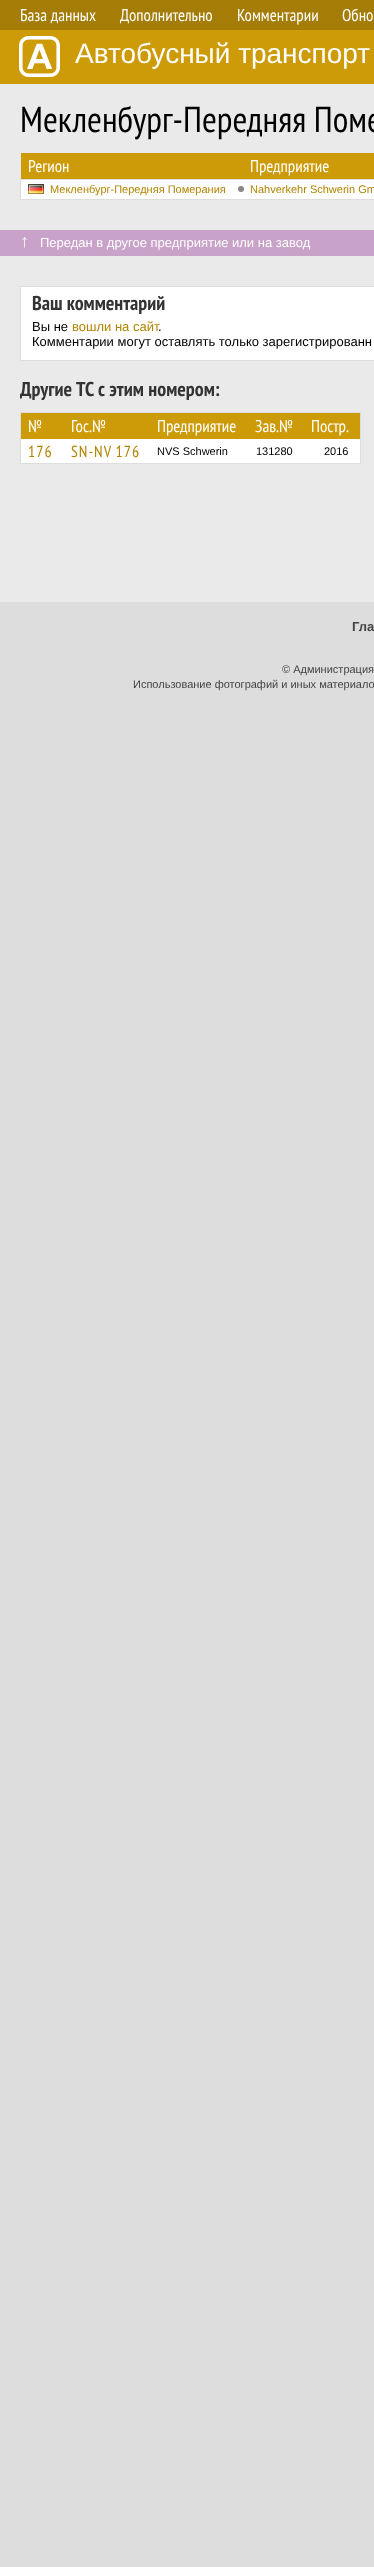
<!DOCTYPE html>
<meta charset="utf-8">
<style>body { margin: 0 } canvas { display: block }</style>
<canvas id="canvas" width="374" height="2567"></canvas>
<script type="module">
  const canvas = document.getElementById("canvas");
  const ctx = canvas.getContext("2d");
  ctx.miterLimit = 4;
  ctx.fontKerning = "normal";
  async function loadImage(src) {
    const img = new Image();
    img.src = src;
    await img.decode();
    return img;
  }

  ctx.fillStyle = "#dddddd";
  ctx.fillRect(0, 0, 374, 2567);
  ctx.fillStyle = "#a47c06";
  ctx.fillRect(0, 0, 374, 30);
  ctx.font = "17px PT Sans Narrow";
  ctx.fillStyle = "#ffffff";
  ctx.fillText("База данных", 20, 21);
  ctx.fillText("Дополнительно", 120, 21);
  ctx.fillText("Комментарии", 237, 21);
  ctx.fillText("Обно", 342, 21);
  ctx.fillStyle = "#cd9b08";
  ctx.fillRect(0, 30, 374, 54);
  ctx.drawImage(await loadImage("img1.png"), 19, 36, 41, 41);
  ctx.font = "28px Liberation Sans";
  ctx.fillStyle = "#ffffff";
  ctx.fillText("Автобусный транспорт", 75, 63);
  ctx.fillStyle = "#eaeaea";
  ctx.fillRect(0, 84, 374, 518);
  ctx.font = "36px PT Sans Narrow";
  ctx.fillStyle = "#000000";
  ctx.fillText("Мекленбург-Передняя Поме", 20, 132);
  ctx.fillStyle = "#cd9b08";
  ctx.fillRect(21, 153, 353, 26);
  ctx.font = "17px PT Sans Narrow";
  ctx.fillStyle = "#ffffff";
  ctx.fillText("Регион", 28, 172);
  ctx.fillText("Предприятие", 250, 172);
  ctx.fillRect(21, 180, 353, 19);
  ctx.fillStyle = "#dddddd";
  ctx.fillRect(20, 179, 354, 1);
  ctx.fillRect(20, 199, 354, 1);
  ctx.fillRect(20, 179, 1, 21);
  ctx.drawImage(await loadImage("img2.png"), 28, 184, 16, 10);
  ctx.font = "11px Liberation Sans";
  ctx.fillStyle = "#b08300";
  ctx.fillText("Мекленбург-Передняя Померания", 50, 193);
  ctx.fillStyle = "#888888";
  ctx.beginPath();
  ctx.arc(241, 189, 3, 0, Math.PI * 2);
  ctx.fill();
  ctx.fillStyle = "#b08300";
  ctx.fillText("Nahverkehr Schwerin Gm", 250, 193);
  ctx.fillStyle = "#c8a2c8";
  ctx.fillRect(0, 230, 374, 26);
  ctx.font = "18px Liberation Sans";
  ctx.fillStyle = "#ffffff";
  ctx.fillText("↑", 20, 247);
  ctx.font = "13px Liberation Sans";
  ctx.fillText("Передан в другое предприятие или на завод", 40, 247);
  ctx.beginPath();
  ctx.rect(20.5, 286.5, 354, 74);
  ctx.fill();
  ctx.strokeStyle = "#dddddd";
  ctx.stroke();
  ctx.font = "bold 20px PT Sans Narrow";
  ctx.fillStyle = "#333333";
  ctx.fillText("Ваш комментарий", 32, 310);
  ctx.font = "13px Liberation Sans";
  ctx.fillStyle = "#000000";
  ctx.fillText("Вы не", 32, 331);
  ctx.fillStyle = "#b08300";
  ctx.fillText("вошли на сайт", 72, 331);
  ctx.fillStyle = "#000000";
  ctx.fillText(".", 158, 331);
  ctx.fillText("Комментарии могут оставлять только зарегистрированн", 32, 346);
  ctx.wordSpacing = "0.5px";
  ctx.font = "bold 20px PT Sans Narrow";
  ctx.fillStyle = "#333333";
  ctx.fillText("Другие ТС с этим номером:", 20, 396);
  ctx.fillStyle = "#ffffff";
  ctx.fillRect(21, 439, 339, 24);
  ctx.strokeRect(20.5, 412.5, 340, 51);
  ctx.fillStyle = "#cd9b08";
  ctx.fillRect(21, 413, 339, 26);
  ctx.wordSpacing = "0px";
  ctx.font = "17px PT Sans Narrow";
  ctx.fillStyle = "#ffffff";
  ctx.fillText("№", 28, 432);
  ctx.fillText("Гос.№", 71, 432);
  ctx.fillText("Предприятие", 157, 432);
  ctx.fillText("Зав.№", 255, 432);
  ctx.fillText("Постр.", 311, 432);
  ctx.letterSpacing = "1px";
  ctx.font = "16px PT Sans Narrow";
  ctx.fillStyle = "#b08300";
  ctx.fillText("176", 28, 457);
  ctx.wordSpacing = "-1px";
  ctx.fillText("SN-NV 176", 71, 457);
  ctx.letterSpacing = "0px";
  ctx.wordSpacing = "0px";
  ctx.font = "11px Liberation Sans";
  ctx.fillStyle = "#000000";
  ctx.fillText("NVS Schwerin", 157, 455);
  ctx.fillText("131280", 256, 455);
  ctx.fillText("2016", 324, 455);
  ctx.font = "bold 13px Liberation Sans";
  ctx.fillStyle = "#444444";
  ctx.fillText("Гла", 352, 631);
  ctx.font = "11px Liberation Sans";
  ctx.fillText("© Администрация", 282, 673);
  ctx.fillText("Использование фотографий и иных материало", 133, 688);
</script>
